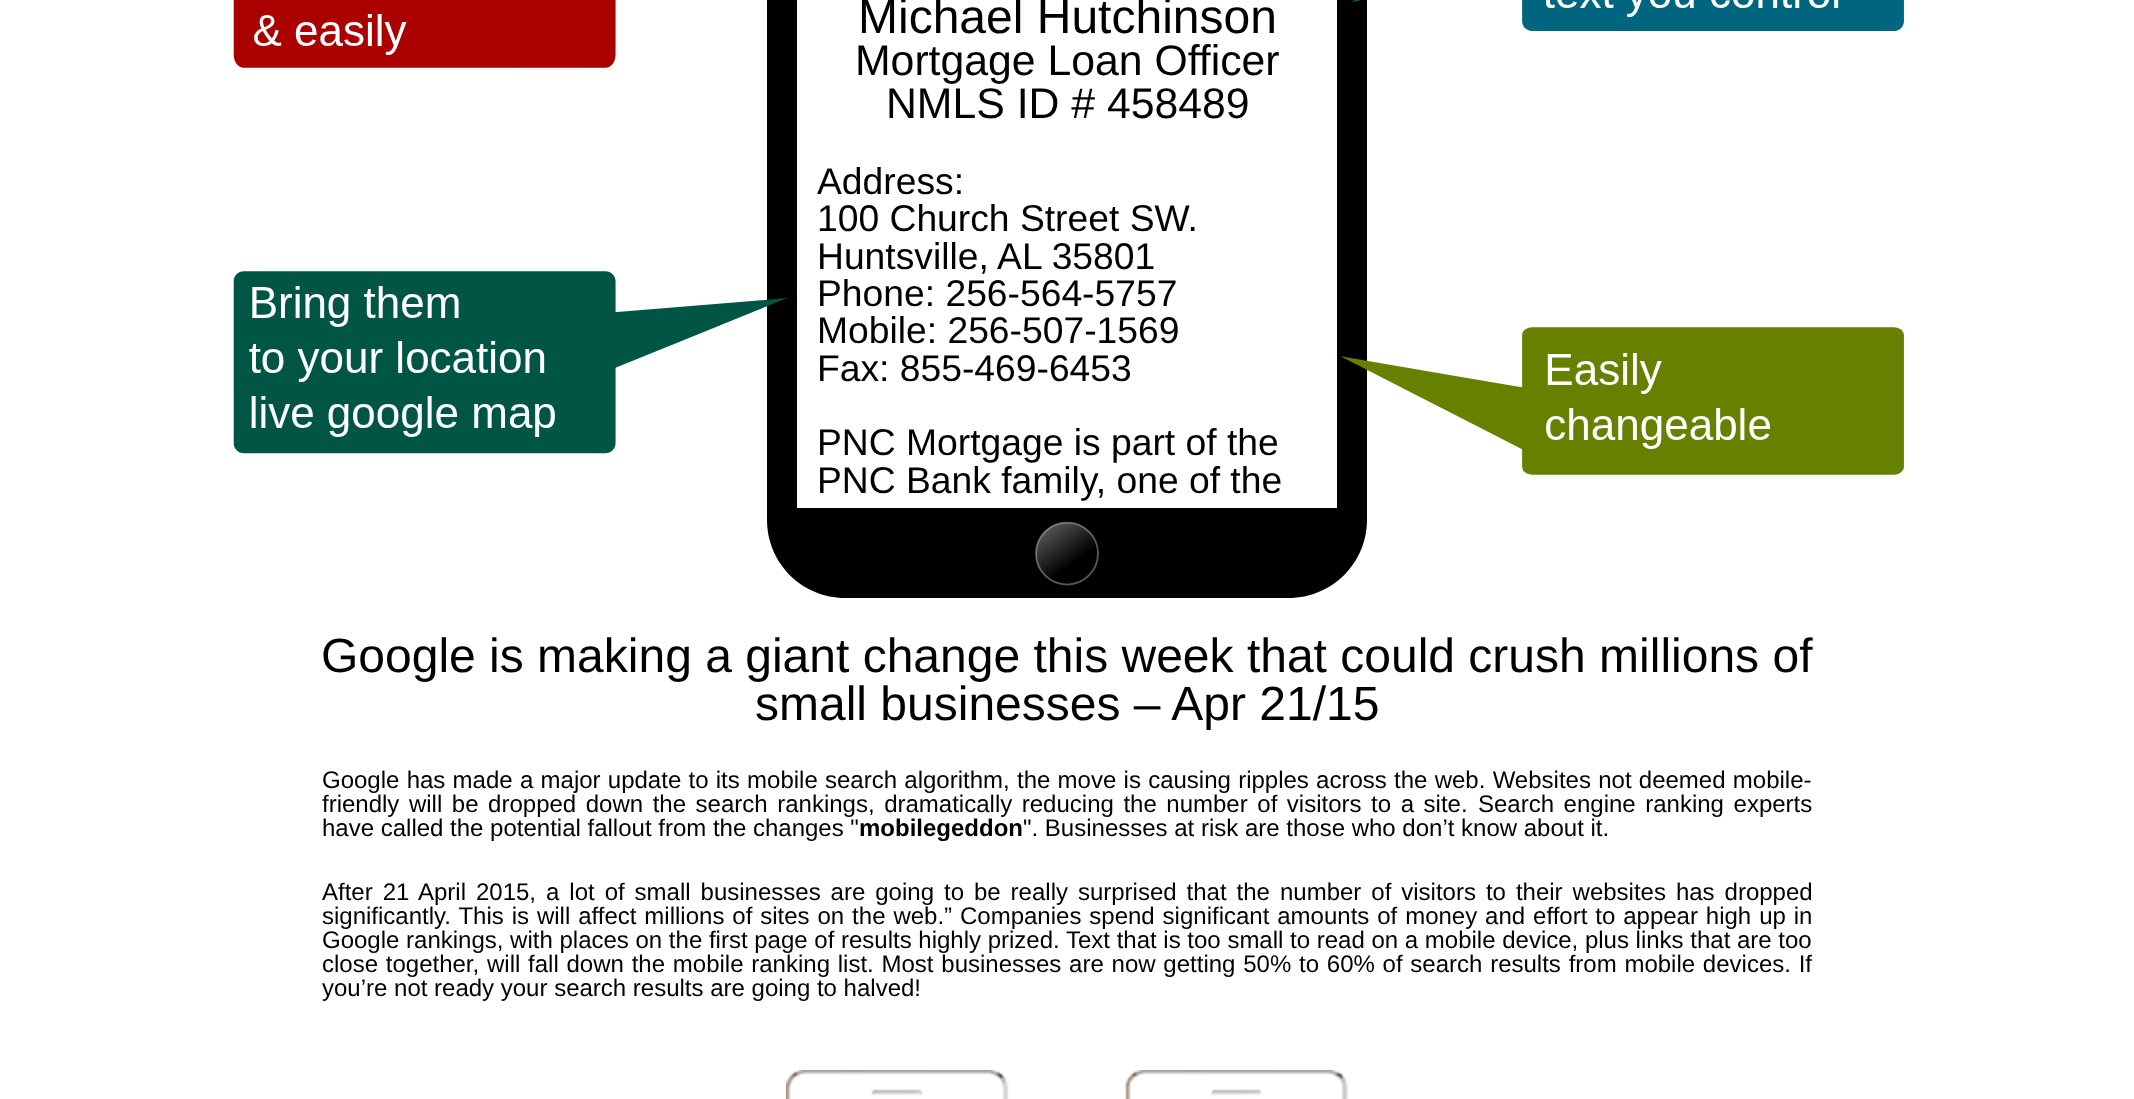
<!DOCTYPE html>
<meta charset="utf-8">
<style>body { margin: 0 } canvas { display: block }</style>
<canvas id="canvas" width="2134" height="1099"></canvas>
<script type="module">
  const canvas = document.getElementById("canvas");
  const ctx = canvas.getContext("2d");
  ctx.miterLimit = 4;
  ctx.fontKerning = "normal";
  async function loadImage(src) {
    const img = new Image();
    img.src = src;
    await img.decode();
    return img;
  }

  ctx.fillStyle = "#ffffff";
  ctx.fillRect(0, 0, 2134, 1099);
  ctx.drawImage(await loadImage("img1.png"), 233, 0, 1671, 598);
  ctx.font = "48px Liberation Sans";
  ctx.fillStyle = "#000000";
  ctx.fillText("Michael Hutchinson", 858, 33);
  ctx.font = "42.75px Liberation Sans";
  ctx.fillText("Mortgage Loan Officer", 855, 75);
  ctx.fillText("NMLS ID # 458489", 886, 118);
  ctx.font = "37.25px Liberation Sans";
  ctx.fillText("Address:", 817, 194);
  ctx.fillText("100 Church Street SW.", 817, 231);
  ctx.fillText("Huntsville, AL 35801", 817, 269);
  ctx.fillText("Phone: 256-564-5757", 817, 306);
  ctx.fillText("Mobile: 256-507-1569", 817, 343);
  ctx.fillText("Fax: 855-469-6453", 817, 381);
  ctx.fillText("PNC Mortgage is part of the", 817, 455);
  ctx.fillText("PNC Bank family, one of the", 817, 493);
  ctx.font = "48px Liberation Sans";
  ctx.fillText("Google is making a giant change this week that could crush millions of", 321, 672);
  ctx.fillText("small businesses – Apr 21/15", 755, 720);
  ctx.wordSpacing = "0.6px";
  ctx.font = "24px Liberation Sans";
  ctx.fillText("Google has made a major update to its mobile search algorithm, the move is causing ripples across the web. Websites not deemed mobile-", 322, 788);
  ctx.wordSpacing = "2.9px";
  ctx.fillText("friendly will be dropped down the search rankings, dramatically reducing the number of visitors to a site.", 322, 812);
  ctx.fillText("Search engine ranking experts", 1478, 812);
  ctx.wordSpacing = "0px";
  ctx.fillText("have called the potential fallout from the changes \"", 322, 836);
  ctx.font = "bold 24px Liberation Sans";
  ctx.fillText("mobilegeddon", 859, 836);
  ctx.font = "24px Liberation Sans";
  ctx.fillText("\". Businesses at risk are those who don’t know about it.", 1023, 836);
  ctx.wordSpacing = "3.3px";
  ctx.fillText("After 21 April 2015, a lot of small businesses are going to be really surprised that the number of visitors to their websites has dropped", 322, 900);
  ctx.wordSpacing = "1.25px";
  ctx.fillText("significantly. This is will affect millions of sites on the web.” Companies spend significant amounts of money and effort to appear high up in", 322, 924);
  ctx.wordSpacing = "0px";
  ctx.fillText("Google rankings, with places on the first page of results highly prized. Text that is too small to read on a mobile device, plus links that are too", 322, 948);
  ctx.wordSpacing = "1.1px";
  ctx.fillText("close together, will fall down the mobile ranking list. Most businesses are now getting 50% to 60% of search results from mobile devices. If", 322, 972);
  ctx.wordSpacing = "0px";
  ctx.fillText("you’re not ready your search results are going to halved!", 322, 996);
  ctx.drawImage(await loadImage("img2.png"), 786, 1070, 563, 29);
</script>
